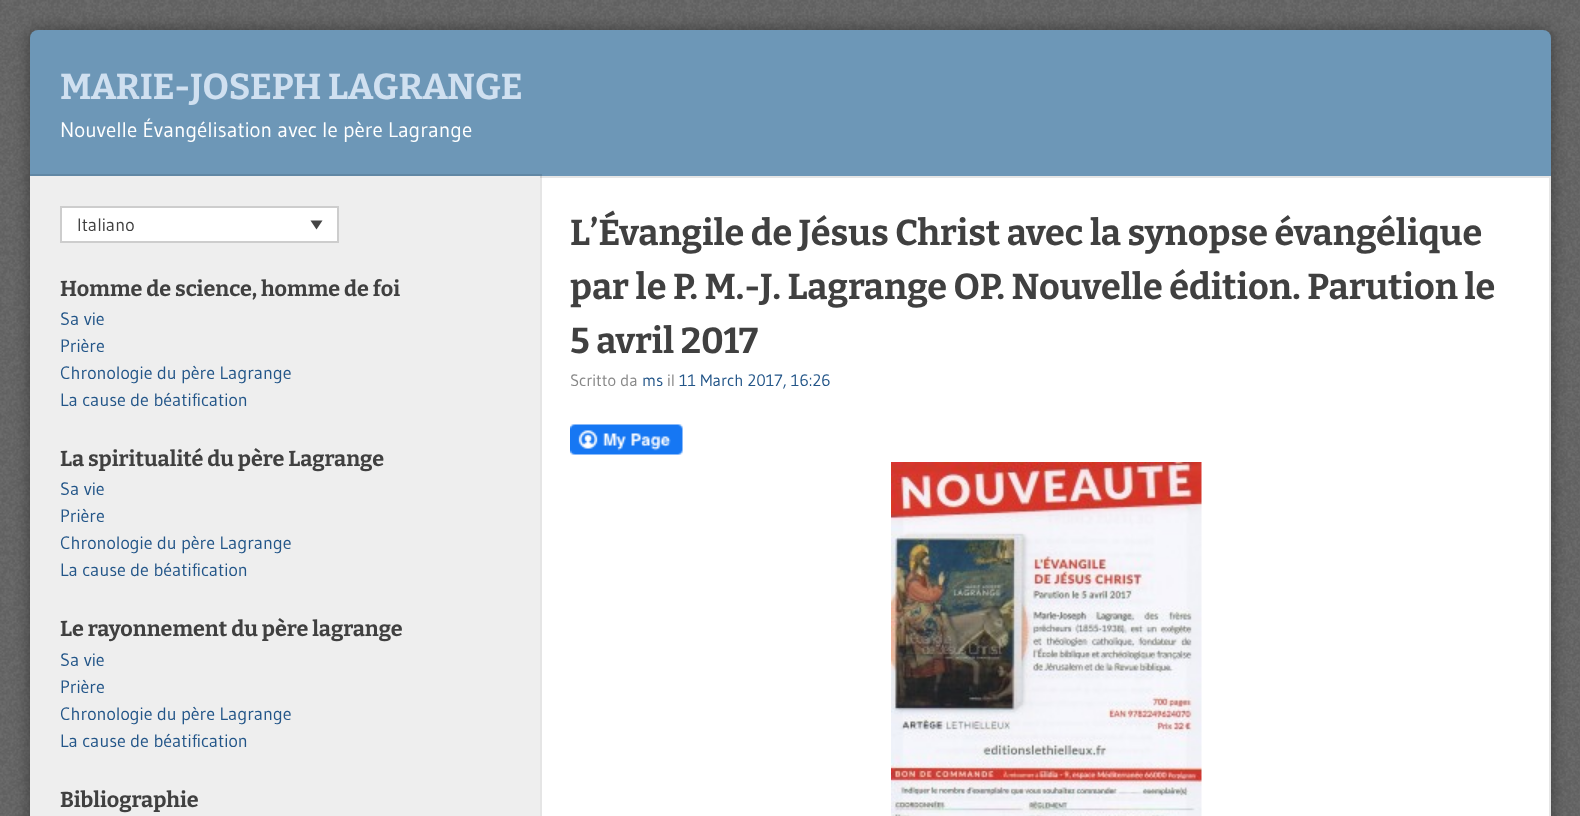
<!DOCTYPE html>
<meta charset="utf-8">
<style>body { margin: 0 } canvas { display: block }</style>
<canvas id="canvas" width="1580" height="816"></canvas>
<script type="module">
  const canvas = document.getElementById("canvas");
  const ctx = canvas.getContext("2d");
  ctx.miterLimit = 4;
  ctx.fontKerning = "normal";
  async function loadImage(src) {
    const img = new Image();
    img.src = src;
    await img.decode();
    return img;
  }

  ctx.fillStyle = "#666666";
  ctx.fillRect(0, 0, 1580, 816);
  ctx.drawImage(await loadImage("img1.png"), 0, 0, 1580, 816);
  ctx.fillStyle = "rgba(0, 0, 0, 0.4)";
  ctx.filter = "blur(7.5px)";
  ctx.beginPath();
  ctx.roundRect(30, 30, 1521, 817, 8);
  ctx.fill();
  ctx.filter = "none";
  ctx.fillStyle = "#6d97b7";
  ctx.beginPath();
  ctx.roundRect(30, 30, 1521, 146, [8, 8, 0, 0]);
  ctx.fill();
  ctx.font = "bold 36px Bitter";
  ctx.fillStyle = "#d0e0f0";
  ctx.fillText("MARIE-JOSEPH LAGRANGE", 60, 99);
  ctx.font = "21px Gudea";
  ctx.fillStyle = "#ffffff";
  ctx.fillText("Nouvelle Évangélisation avec le père Lagrange", 60, 137);
  ctx.fillRect(540, 178, 1009, 638);
  ctx.strokeStyle = "#e6e6e6";
  ctx.lineWidth = 2;
  ctx.strokeRect(31, 177, 1519, 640);
  ctx.fillStyle = "rgba(0, 0, 0, 0.1)";
  ctx.beginPath();
  ctx.moveTo(30, 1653);
  ctx.lineTo(30, 174);
  ctx.lineTo(542, 174);
  ctx.lineTo(542, 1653);
  ctx.closePath();
  ctx.moveTo(31, 176);
  ctx.lineTo(31, 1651);
  ctx.lineTo(540, 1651);
  ctx.lineTo(540, 176);
  ctx.closePath();
  ctx.fill("evenodd");
  ctx.fillStyle = "#eeeeee";
  ctx.fillRect(30, 176, 510, 640);
  ctx.fillStyle = "#ffffff";
  ctx.beginPath();
  ctx.rect(61, 207, 277, 35);
  ctx.fill();
  ctx.strokeStyle = "#cdcdcd";
  ctx.stroke();
  ctx.font = "18px Gudea";
  ctx.fillStyle = "#404040";
  ctx.fillText("Italiano", 77, 231);
  ctx.fillStyle = "#444444";
  ctx.beginPath();
  ctx.moveTo(310.5, 220.5);
  ctx.lineTo(322.5, 220.5);
  ctx.lineTo(316.5, 229.5);
  ctx.closePath();
  ctx.fill();
  ctx.font = "bold 21.6px Bitter";
  ctx.fillStyle = "#404040";
  ctx.fillText("Homme de science, homme de foi", 60, 296);
  ctx.font = "18px Gudea";
  ctx.fillStyle = "#225588";
  ctx.fillText("Sa vie", 60, 325);
  ctx.fillText("Prière", 60, 352);
  ctx.fillText("Chronologie du père Lagrange", 60, 379);
  ctx.fillText("La cause de béatification", 60, 406);
  ctx.font = "bold 21.6px Bitter";
  ctx.fillStyle = "#404040";
  ctx.fillText("La spiritualité du père Lagrange", 60, 466);
  ctx.font = "18px Gudea";
  ctx.fillStyle = "#225588";
  ctx.fillText("Sa vie", 60, 495);
  ctx.fillText("Prière", 60, 522);
  ctx.fillText("Chronologie du père Lagrange", 60, 549);
  ctx.fillText("La cause de béatification", 60, 576);
  ctx.font = "bold 21.6px Bitter";
  ctx.fillStyle = "#404040";
  ctx.fillText("Le rayonnement du père lagrange", 60, 636);
  ctx.font = "18px Gudea";
  ctx.fillStyle = "#225588";
  ctx.fillText("Sa vie", 60, 666);
  ctx.fillText("Prière", 60, 693);
  ctx.fillText("Chronologie du père Lagrange", 60, 720);
  ctx.fillText("La cause de béatification", 60, 747);
  ctx.font = "bold 21.6px Bitter";
  ctx.fillStyle = "#404040";
  ctx.fillText("Bibliographie", 60, 807);
  ctx.font = "bold 36px Bitter";
  ctx.fillText("L’Évangile de Jésus Christ avec la synopse évangélique", 570, 245);
  ctx.fillText("par le P. M.-J. Lagrange OP. Nouvelle édition. Parution le", 570, 299);
  ctx.fillText("5 avril 2017", 570, 353);
  ctx.font = "16.5px Gudea";
  ctx.fillStyle = "#888888";
  ctx.fillText("Scritto da", 570, 386);
  ctx.fillStyle = "#225588";
  ctx.fillText("ms", 642, 386);
  ctx.fillStyle = "#888888";
  ctx.fillText("il", 667, 386);
  ctx.fillStyle = "#225588";
  ctx.fillText("11 March 2017, 16:26", 679, 386);
  ctx.drawImage(await loadImage("img2.png"), 570, 424, 113, 31);
  ctx.drawImage(await loadImage("img3.png"), 891, 462, 311, 354);
</script>
